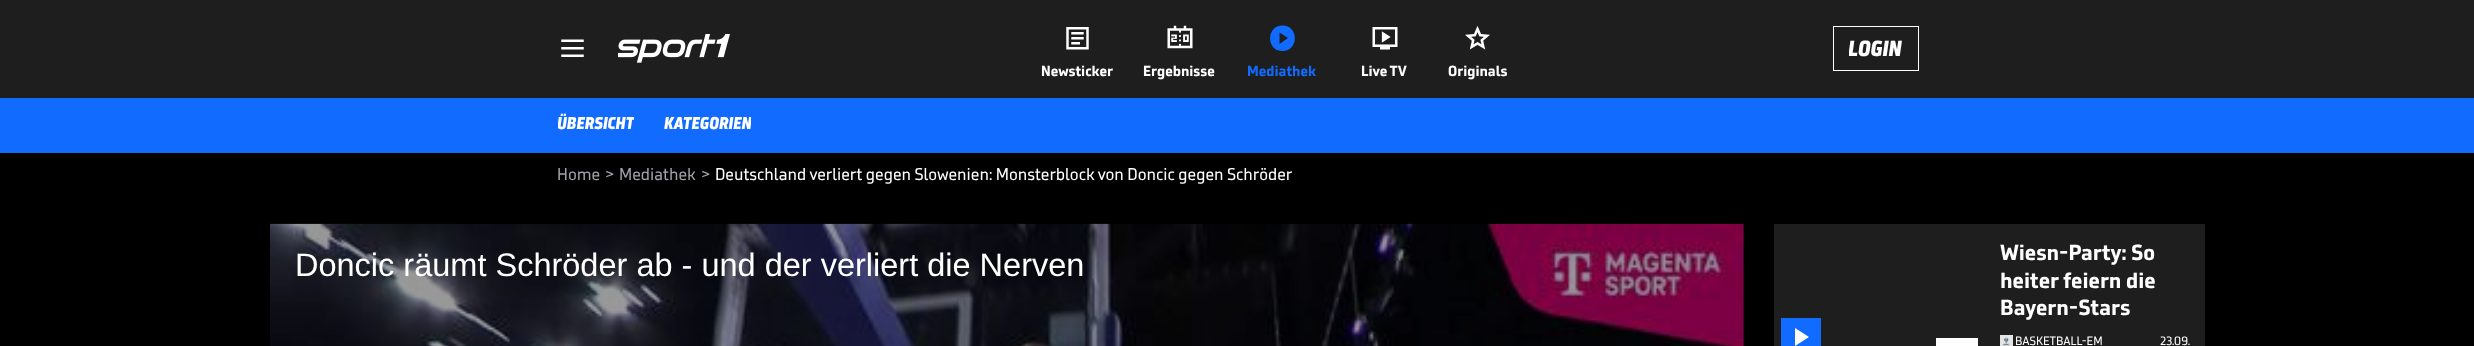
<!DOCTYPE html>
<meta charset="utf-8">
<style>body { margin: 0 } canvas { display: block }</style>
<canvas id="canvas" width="2474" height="346"></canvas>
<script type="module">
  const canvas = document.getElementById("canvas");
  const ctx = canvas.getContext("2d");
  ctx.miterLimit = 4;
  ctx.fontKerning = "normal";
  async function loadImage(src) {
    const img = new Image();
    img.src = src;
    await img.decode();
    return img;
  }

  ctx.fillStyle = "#000000";
  ctx.fillRect(0, 0, 2474, 346);
  ctx.fillStyle = "#1e1e1e";
  ctx.fillRect(0, 0, 2474, 98);
  ctx.drawImage(await loadImage("img1.png"), 561, 39, 23, 18);
  ctx.drawImage(await loadImage("img2.png"), 618, 34, 112, 29);
  ctx.strokeStyle = "#ffffff";
  ctx.strokeRect(1833.5, 26.5, 85, 44);
  ctx.save();
  ctx.beginPath();
  ctx.rect(1849, 35, 54, 28);
  ctx.clip();
  ctx.font = "italic 900 22.5px 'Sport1'";
  ctx.fillStyle = "#ffffff";
  ctx.fillText("LOGIN", 1848, 56);
  ctx.restore();
  ctx.drawImage(await loadImage("img3.png"), 1066, 27, 23, 23);
  ctx.font = "bold 15px 'Sport1'";
  ctx.fillStyle = "#ffffff";
  ctx.fillText("Newsticker", 1041, 76);
  ctx.drawImage(await loadImage("img4.png"), 1167, 25, 26, 24);
  ctx.fillText("Ergebnisse", 1143, 76);
  ctx.fillStyle = "#106bfe";
  ctx.beginPath();
  ctx.moveTo(1279.5, 44);
  ctx.lineTo(1288, 38);
  ctx.lineTo(1279.5, 32.5);
  ctx.closePath();
  ctx.moveTo(1282.5, 51);
  ctx.bezierCurveTo(1266, 51, 1266, 25.5, 1282.5, 25.5);
  ctx.bezierCurveTo(1299, 25.5, 1299, 51, 1282.5, 51);
  ctx.closePath();
  ctx.fill();
  ctx.fillText("Mediathek", 1247, 76);
  ctx.drawImage(await loadImage("img5.png"), 1372, 27, 26, 23);
  ctx.fillStyle = "#ffffff";
  ctx.fillText("Live TV", 1361, 76);
  ctx.drawImage(await loadImage("img6.png"), 1465, 25, 25, 25);
  ctx.fillText("Originals", 1448, 76);
  ctx.fillStyle = "#106bfe";
  ctx.fillRect(0, 98, 2474, 55);
  ctx.save();
  ctx.beginPath();
  ctx.rect(558, 113, 76, 22);
  ctx.clip();
  ctx.font = "italic 900 17.5px 'Sport1'";
  ctx.fillStyle = "#ffffff";
  ctx.fillText("ÜBERSICHT", 557, 129);
  ctx.restore();
  ctx.save();
  ctx.beginPath();
  ctx.rect(664, 113, 87, 22);
  ctx.clip();
  ctx.font = "italic 900 17.5px 'Sport1'";
  ctx.fillStyle = "#ffffff";
  ctx.fillText("KATEGORIEN", 664, 129);
  ctx.restore();
  ctx.font = "17.5px 'Sport1'";
  ctx.fillStyle = "#a1a1a9";
  ctx.fillText("Home", 557, 180);
  ctx.fillText(">", 605, 180);
  ctx.fillText("Mediathek", 619, 180);
  ctx.fillText(">", 701, 180);
  ctx.fillStyle = "#ffffff";
  ctx.fillText("Deutschland verliert gegen Slowenien: Monsterblock von Doncic gegen Schröder", 715, 180);
  ctx.drawImage(await loadImage("img7.png"), 270, 223, 1474, 123);
  ctx.font = "32.5px Liberation Sans";
  ctx.fillText("Doncic räumt Schröder ab - und der verliert die Nerven", 295, 276);
  ctx.fillStyle = "#1e1e1e";
  ctx.fillRect(1774, 224, 431, 122);
  ctx.fillStyle = "#106bfe";
  ctx.fillRect(1781, 318, 40, 28);
  ctx.fillStyle = "#ffffff";
  ctx.beginPath();
  ctx.moveTo(1795, 346);
  ctx.lineTo(1795, 328);
  ctx.lineTo(1809, 337);
  ctx.closePath();
  ctx.fill();
  ctx.fillRect(1936, 338, 42, 8);
  ctx.font = "bold 22.5px 'Sport1'";
  ctx.fillText("Wiesn-Party: So", 2000, 260);
  ctx.fillText("heiter feiern die", 2000, 288);
  ctx.fillText("Bayern-Stars", 2000, 315);
  ctx.fillStyle = "#e5e5e5";
  ctx.fillRect(2000, 335, 13, 11);
  ctx.drawImage(await loadImage("img8.png"), 2002, 337, 8, 9);
  ctx.font = "12.5px 'Sport1'";
  ctx.fillStyle = "#ffffff";
  ctx.fillText("BASKETBALL-EM", 2015, 345);
  ctx.fillText("23.09.", 2160, 345);
</script>
